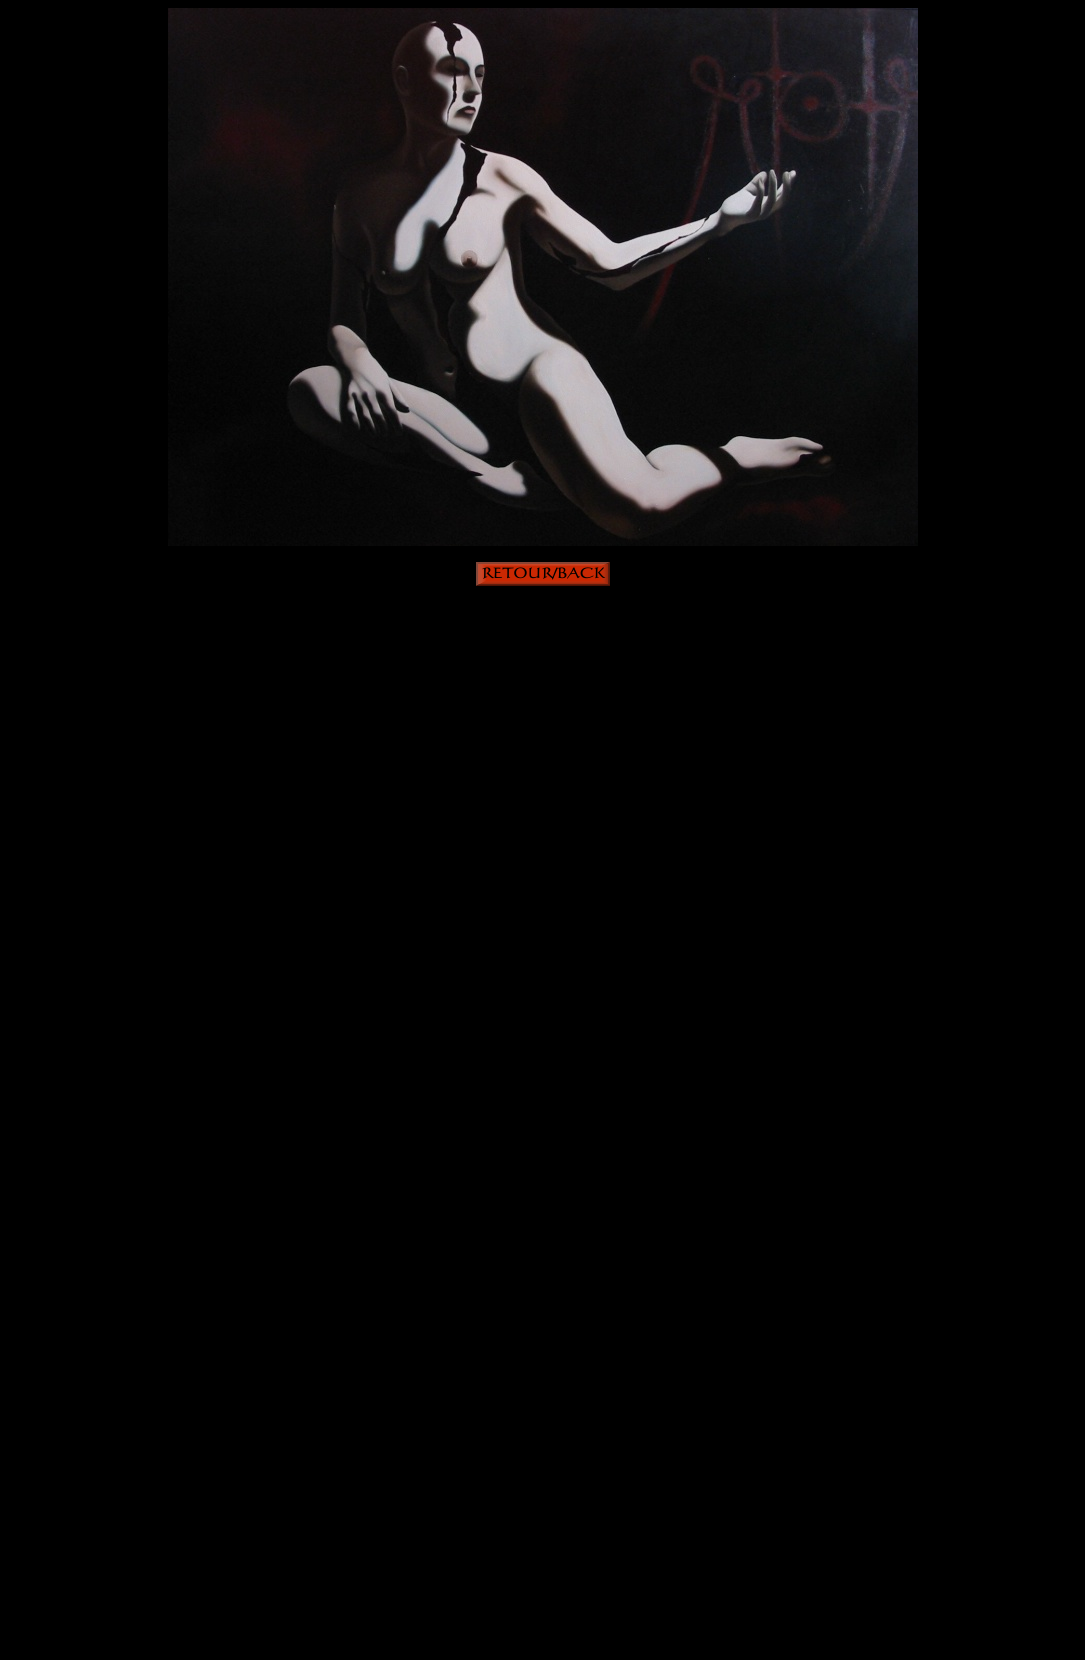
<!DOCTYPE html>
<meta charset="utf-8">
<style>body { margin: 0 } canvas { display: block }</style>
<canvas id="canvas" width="1085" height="1660"></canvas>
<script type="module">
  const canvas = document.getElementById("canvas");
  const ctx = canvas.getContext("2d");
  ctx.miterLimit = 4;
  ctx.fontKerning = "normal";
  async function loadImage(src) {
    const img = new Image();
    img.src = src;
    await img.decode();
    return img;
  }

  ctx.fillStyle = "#000000";
  ctx.fillRect(0, 0, 1085, 1660);
  ctx.drawImage(await loadImage("img1.png"), 168, 8, 750, 538);
  ctx.drawImage(await loadImage("img2.png"), 476, 562, 134, 24);
</script>
